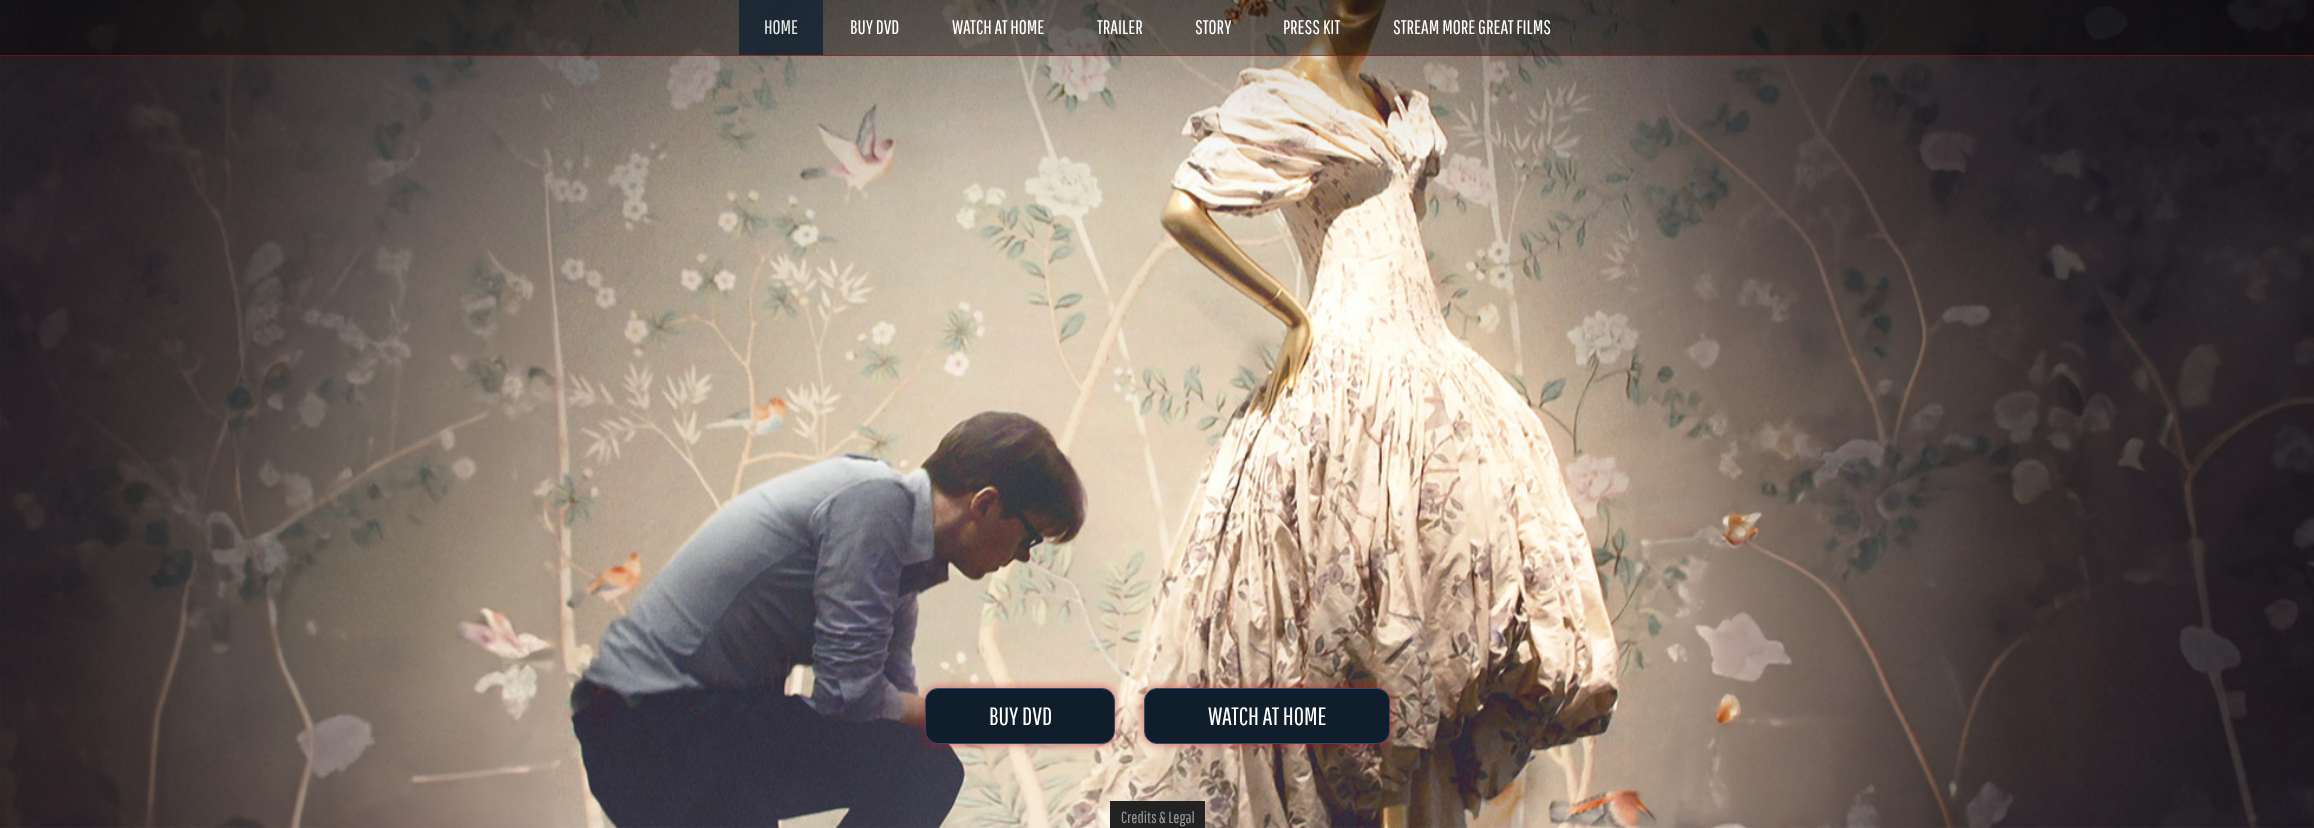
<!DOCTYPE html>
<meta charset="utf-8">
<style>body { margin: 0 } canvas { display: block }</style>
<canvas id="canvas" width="2314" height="828"></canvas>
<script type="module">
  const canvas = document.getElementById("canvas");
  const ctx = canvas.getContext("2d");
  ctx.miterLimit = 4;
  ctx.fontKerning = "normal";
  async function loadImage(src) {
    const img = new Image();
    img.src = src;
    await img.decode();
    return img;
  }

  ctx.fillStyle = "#ffffff";
  ctx.fillRect(0, 0, 2314, 828);
  ctx.drawImage(await loadImage("img1.png"), 0, 0, 2314, 828);
  ctx.fillStyle = "rgba(0, 0, 0, 0.4)";
  ctx.fillRect(0, 0, 2314, 56);
  ctx.fillStyle = "rgba(201, 10, 16, 0.5)";
  ctx.fillRect(0, 55, 2314, 1);
  ctx.fillStyle = "rgba(17, 34, 50, 0.8)";
  ctx.fillRect(739, 0, 84, 55);
  ctx.font = "19.5px Pathway Gothic One";
  ctx.fillStyle = "#e6e6e6";
  ctx.fillText("HOME", 764, 34);
  ctx.fillStyle = "#ffffff";
  ctx.fillText("BUY DVD", 850, 34);
  ctx.fillText("WATCH AT HOME", 952, 34);
  ctx.fillText("TRAILER", 1097, 34);
  ctx.fillText("STORY", 1195, 34);
  ctx.fillText("PRESS KIT", 1283, 34);
  ctx.fillText("STREAM MORE GREAT FILMS", 1393, 34);
  ctx.fillStyle = "rgba(201, 10, 16, 0.6)";
  ctx.filter = "blur(5px)";
  ctx.beginPath();
  ctx.roundRect(925, 688, 190, 56, 13);
  ctx.fill();
  ctx.filter = "none";
  ctx.fillStyle = "#101d2b";
  ctx.beginPath();
  ctx.roundRect(925.5, 688.5, 189, 55, 12.5);
  ctx.fill();
  ctx.strokeStyle = "#314c70";
  ctx.stroke();
  ctx.font = "25px Pathway Gothic One";
  ctx.fillStyle = "#ffffff";
  ctx.fillText("BUY DVD", 989, 725);
  ctx.fillStyle = "rgba(201, 10, 16, 0.6)";
  ctx.filter = "blur(5px)";
  ctx.beginPath();
  ctx.roundRect(1144, 688, 246, 56, 13);
  ctx.fill();
  ctx.filter = "none";
  ctx.fillStyle = "#101d2b";
  ctx.beginPath();
  ctx.roundRect(1144.5, 688.5, 245, 55, 12.5);
  ctx.fill();
  ctx.stroke();
  ctx.fillStyle = "#ffffff";
  ctx.fillText("WATCH AT HOME", 1208, 725);
  ctx.fillStyle = "#222222";
  ctx.fillRect(1110, 801, 95, 27);
  ctx.font = "16.25px Pathway Gothic One";
  ctx.fillStyle = "#999999";
  ctx.fillText("Credits & Legal", 1121, 823);
</script>
